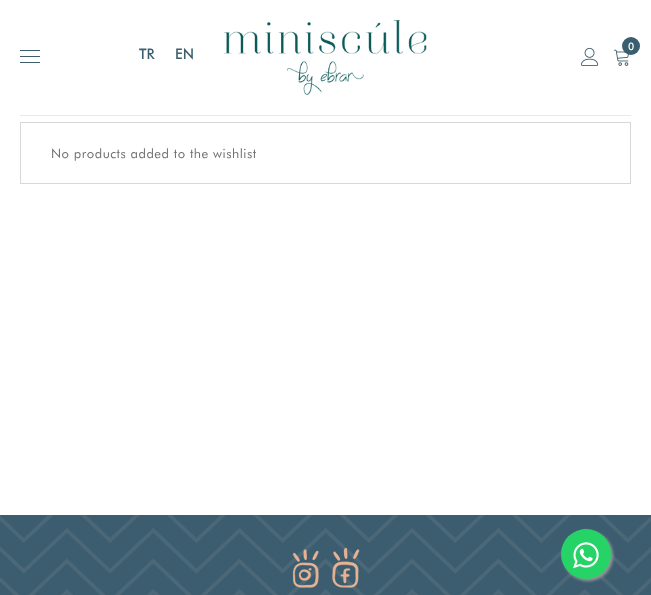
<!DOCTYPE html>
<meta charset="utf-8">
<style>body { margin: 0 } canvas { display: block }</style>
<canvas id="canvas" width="651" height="595"></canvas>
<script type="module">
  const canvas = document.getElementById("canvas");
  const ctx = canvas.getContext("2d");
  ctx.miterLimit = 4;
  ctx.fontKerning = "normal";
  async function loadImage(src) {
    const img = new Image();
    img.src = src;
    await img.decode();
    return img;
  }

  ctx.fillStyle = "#ffffff";
  ctx.fillRect(0, 0, 651, 595);
  ctx.drawImage(await loadImage("img1.png"), 224, 20, 203, 75);
  ctx.drawImage(await loadImage("img2.png"), 581, 47, 18, 19);
  ctx.drawImage(await loadImage("img3.png"), 613, 49, 16, 17);
  ctx.fillStyle = "#3b5e6e";
  ctx.beginPath();
  ctx.arc(631, 46, 9, 0, Math.PI * 2);
  ctx.fill();
  ctx.letterSpacing = "0.5px";
  ctx.font = "bold 10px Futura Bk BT";
  ctx.fillStyle = "#ffffff";
  ctx.fillText("0", 628, 50);
  ctx.fillStyle = "#3b5e6e";
  ctx.fillRect(20, 50, 20, 1);
  ctx.fillRect(20, 56, 20, 1);
  ctx.fillRect(20, 62, 20, 1);
  ctx.font = "bold 14px Futura Bk BT";
  ctx.fillText("TR", 139, 59);
  ctx.fillText("EN", 175, 59);
  ctx.drawImage(await loadImage("img5.png"), 0, 515, 651, 80);
  ctx.fillStyle = "#999999";
  ctx.filter = "blur(1.5px)";
  ctx.beginPath();
  ctx.roundRect(563, 531, 50, 50, 25);
  ctx.fill();
  ctx.filter = "none";
  ctx.fillStyle = "#25d366";
  ctx.beginPath();
  ctx.arc(586, 554, 25, 0, Math.PI * 2);
  ctx.fill();
  ctx.drawImage(await loadImage("img4.png"), 573, 542, 26, 27);
  ctx.fillStyle = "#e9e9e9";
  ctx.fillRect(20, 115, 611, 1);
  ctx.strokeStyle = "#d7d7d7";
  ctx.strokeRect(20.5, 122.5, 610, 61);
  ctx.font = "13px Futura Bk BT";
  ctx.fillStyle = "#707070";
  ctx.fillText("No products added to the wishlist", 51, 158);
  ctx.drawImage(await loadImage("img6.png"), 292, 549, 27, 39);
  ctx.drawImage(await loadImage("img7.png"), 332, 548, 28, 40);
</script>
